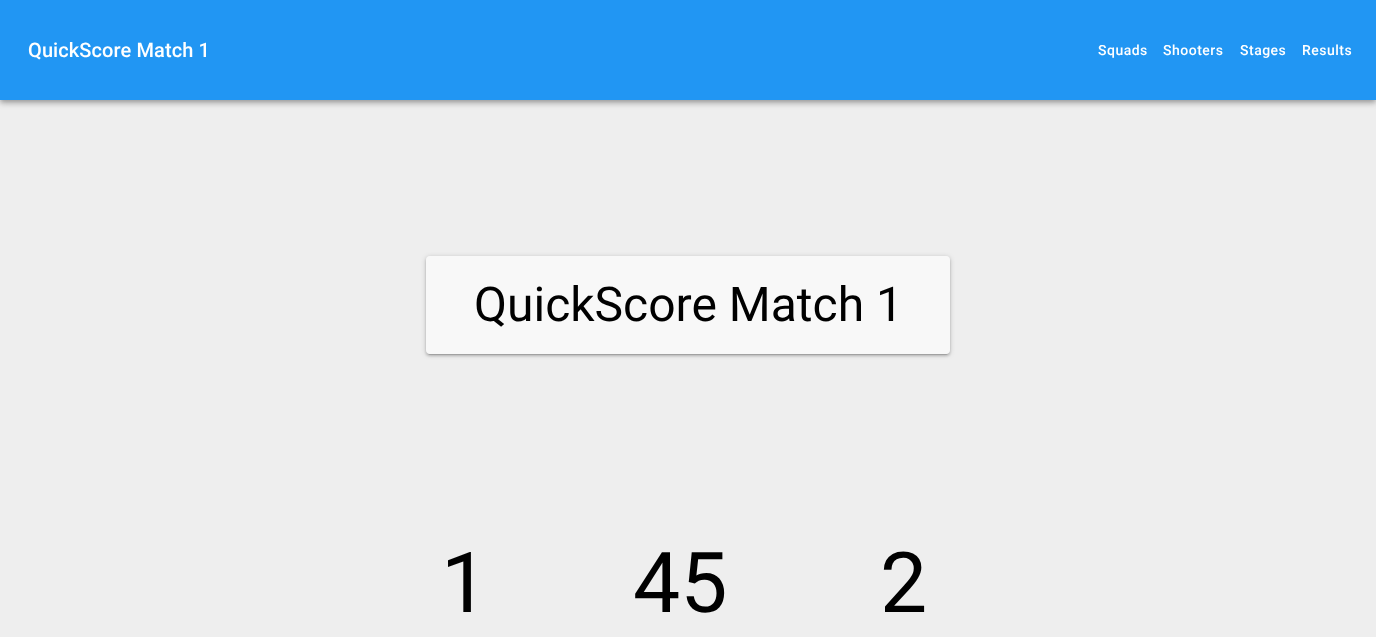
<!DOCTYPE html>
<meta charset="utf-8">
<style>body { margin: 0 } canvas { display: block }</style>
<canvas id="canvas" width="1376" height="637"></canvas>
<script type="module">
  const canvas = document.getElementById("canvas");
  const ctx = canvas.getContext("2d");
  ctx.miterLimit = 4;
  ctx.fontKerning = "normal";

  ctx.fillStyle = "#eeeeee";
  ctx.fillRect(0, 0, 1376, 637);
  ctx.fillStyle = "rgba(0, 0, 0, 0.12)";
  ctx.filter = "blur(5px)";
  ctx.beginPath();
  ctx.rect(0, 1, 1376, 100);
  ctx.fill();
  ctx.filter = "none";
  ctx.fillStyle = "rgba(0, 0, 0, 0.14)";
  ctx.filter = "blur(2.5px)";
  ctx.beginPath();
  ctx.rect(0, 4, 1376, 100);
  ctx.fill();
  ctx.filter = "none";
  ctx.fillStyle = "rgba(0, 0, 0, 0.2)";
  ctx.filter = "blur(2px)";
  ctx.beginPath();
  ctx.rect(1, 3, 1374, 98);
  ctx.fill();
  ctx.filter = "none";
  ctx.fillStyle = "#2196f3";
  ctx.fillRect(0, 0, 1376, 100);
  ctx.letterSpacing = "0.1px";
  ctx.font = "500 20px Roboto";
  ctx.fillStyle = "#ffffff";
  ctx.fillText("QuickScore Match 1", 28, 57);
  ctx.letterSpacing = "0.5px";
  ctx.font = "500 14px Roboto";
  ctx.fillText("Squads", 1098, 55);
  ctx.fillText("Shooters", 1163, 55);
  ctx.fillText("Stages", 1240, 55);
  ctx.fillText("Results", 1302, 55);
  ctx.save();
  ctx.beginPath();
  ctx.moveTo(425, 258);
  ctx.lineTo(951, 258);
  ctx.lineTo(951, 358);
  ctx.lineTo(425, 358);
  ctx.closePath();
  ctx.moveTo(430, 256);
  ctx.lineTo(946, 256);
  ctx.bezierCurveTo(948, 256, 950, 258, 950, 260);
  ctx.lineTo(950, 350);
  ctx.bezierCurveTo(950, 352, 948, 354, 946, 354);
  ctx.lineTo(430, 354);
  ctx.bezierCurveTo(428, 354, 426, 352, 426, 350);
  ctx.lineTo(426, 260);
  ctx.bezierCurveTo(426, 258, 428, 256, 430, 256);
  ctx.closePath();
  ctx.clip("evenodd");
  ctx.fillStyle = "rgba(0, 0, 0, 0.12)";
  ctx.filter = "blur(0.5px)";
  ctx.beginPath();
  ctx.roundRect(428, 261, 520, 94, 2);
  ctx.fill();
  ctx.filter = "none";
  ctx.restore();
  ctx.save();
  ctx.beginPath();
  ctx.moveTo(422, 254);
  ctx.lineTo(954, 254);
  ctx.lineTo(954, 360);
  ctx.lineTo(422, 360);
  ctx.closePath();
  ctx.moveTo(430, 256);
  ctx.lineTo(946, 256);
  ctx.bezierCurveTo(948, 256, 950, 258, 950, 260);
  ctx.lineTo(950, 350);
  ctx.bezierCurveTo(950, 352, 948, 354, 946, 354);
  ctx.lineTo(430, 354);
  ctx.bezierCurveTo(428, 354, 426, 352, 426, 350);
  ctx.lineTo(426, 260);
  ctx.bezierCurveTo(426, 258, 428, 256, 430, 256);
  ctx.closePath();
  ctx.clip("evenodd");
  ctx.fillStyle = "rgba(0, 0, 0, 0.14)";
  ctx.filter = "blur(1px)";
  ctx.beginPath();
  ctx.roundRect(426, 258, 524, 98, 4);
  ctx.fill();
  ctx.filter = "none";
  ctx.restore();
  ctx.save();
  ctx.beginPath();
  ctx.moveTo(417, 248);
  ctx.lineTo(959, 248);
  ctx.lineTo(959, 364);
  ctx.lineTo(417, 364);
  ctx.closePath();
  ctx.moveTo(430, 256);
  ctx.lineTo(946, 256);
  ctx.bezierCurveTo(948, 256, 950, 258, 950, 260);
  ctx.lineTo(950, 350);
  ctx.bezierCurveTo(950, 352, 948, 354, 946, 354);
  ctx.lineTo(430, 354);
  ctx.bezierCurveTo(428, 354, 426, 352, 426, 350);
  ctx.lineTo(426, 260);
  ctx.bezierCurveTo(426, 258, 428, 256, 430, 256);
  ctx.closePath();
  ctx.clip("evenodd");
  ctx.fillStyle = "rgba(0, 0, 0, 0.2)";
  ctx.filter = "blur(2.5px)";
  ctx.beginPath();
  ctx.roundRect(426, 257, 524, 98, 4);
  ctx.fill();
  ctx.filter = "none";
  ctx.restore();
  ctx.fillStyle = "rgba(255, 255, 255, 0.6)";
  ctx.beginPath();
  ctx.roundRect(426, 256, 524, 98, 4);
  ctx.fill();
  ctx.letterSpacing = "0px";
  ctx.font = "48px Roboto";
  ctx.fillStyle = "#000000";
  ctx.fillText("QuickScore Match 1", 474, 321);
  ctx.font = "84px Roboto";
  ctx.fillText("1", 441, 612);
  ctx.fillText("45", 633, 612);
  ctx.fillText("2", 880, 612);
</script>
